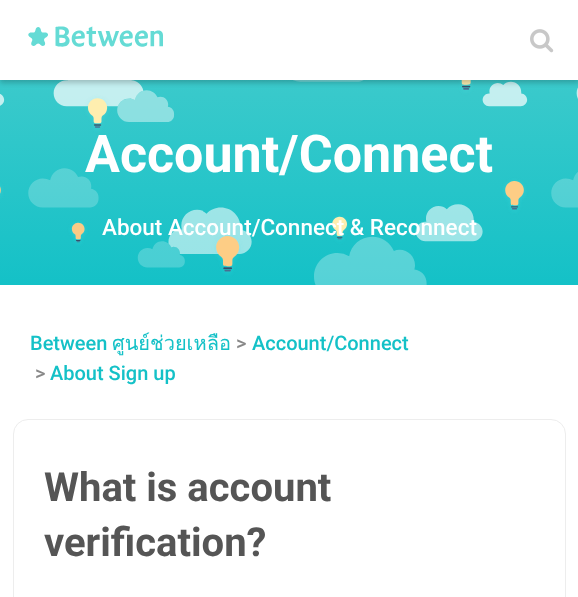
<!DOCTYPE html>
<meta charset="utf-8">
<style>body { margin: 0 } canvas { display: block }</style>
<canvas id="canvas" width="578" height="597"></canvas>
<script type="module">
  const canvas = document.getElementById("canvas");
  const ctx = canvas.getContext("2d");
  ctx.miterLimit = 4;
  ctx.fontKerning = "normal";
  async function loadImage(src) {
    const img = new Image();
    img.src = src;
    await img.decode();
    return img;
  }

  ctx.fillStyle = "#ffffff";
  ctx.fillRect(0, 0, 578, 597);
  ctx.drawImage(await loadImage("img3.png"), 0, 80, 578, 205);
  ctx.fillStyle = "rgba(0, 0, 0, 0.2)";
  ctx.filter = "blur(2.5px)";
  ctx.beginPath();
  ctx.rect(0, 3, 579, 80);
  ctx.fill();
  ctx.filter = "none";
  ctx.fillStyle = "#ffffff";
  ctx.fillRect(0, 0, 578, 80);
  ctx.drawImage(await loadImage("img1.png"), 28, 26, 135, 21);
  ctx.drawImage(await loadImage("img2.png"), 530, 29, 24, 24);
  ctx.font = "bold 52px Roboto";
  ctx.fillText("Account/Connect", 85, 172);
  ctx.font = "500 22.5px Roboto";
  ctx.fillText("About Account/Connect & Reconnect", 102, 235);
  ctx.font = "500 20px Roboto";
  ctx.fillStyle = "#14c1c7";
  ctx.fillText("Between", 30, 350);
  ctx.font = "20px Loma";
  ctx.fillText("ศูนย์ช่วยเหลือ", 112, 350);
  ctx.font = "500 20px Roboto";
  ctx.fillStyle = "#888888";
  ctx.fillText(">", 236, 350);
  ctx.fillStyle = "#14c1c7";
  ctx.fillText("Account/Connect", 252, 350);
  ctx.fillStyle = "#888888";
  ctx.fillText(">", 35, 380);
  ctx.fillStyle = "#14c1c7";
  ctx.fillText("About Sign up", 50, 380);
  ctx.beginPath();
  ctx.roundRect(13.5, 419.5, 552, 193, 14.5);
  ctx.strokeStyle = "#ededed";
  ctx.stroke();
  ctx.font = "bold 40px Roboto";
  ctx.fillStyle = "#555555";
  ctx.fillText("What is account", 44, 501);
  ctx.fillText("verification?", 44, 556);
</script>
